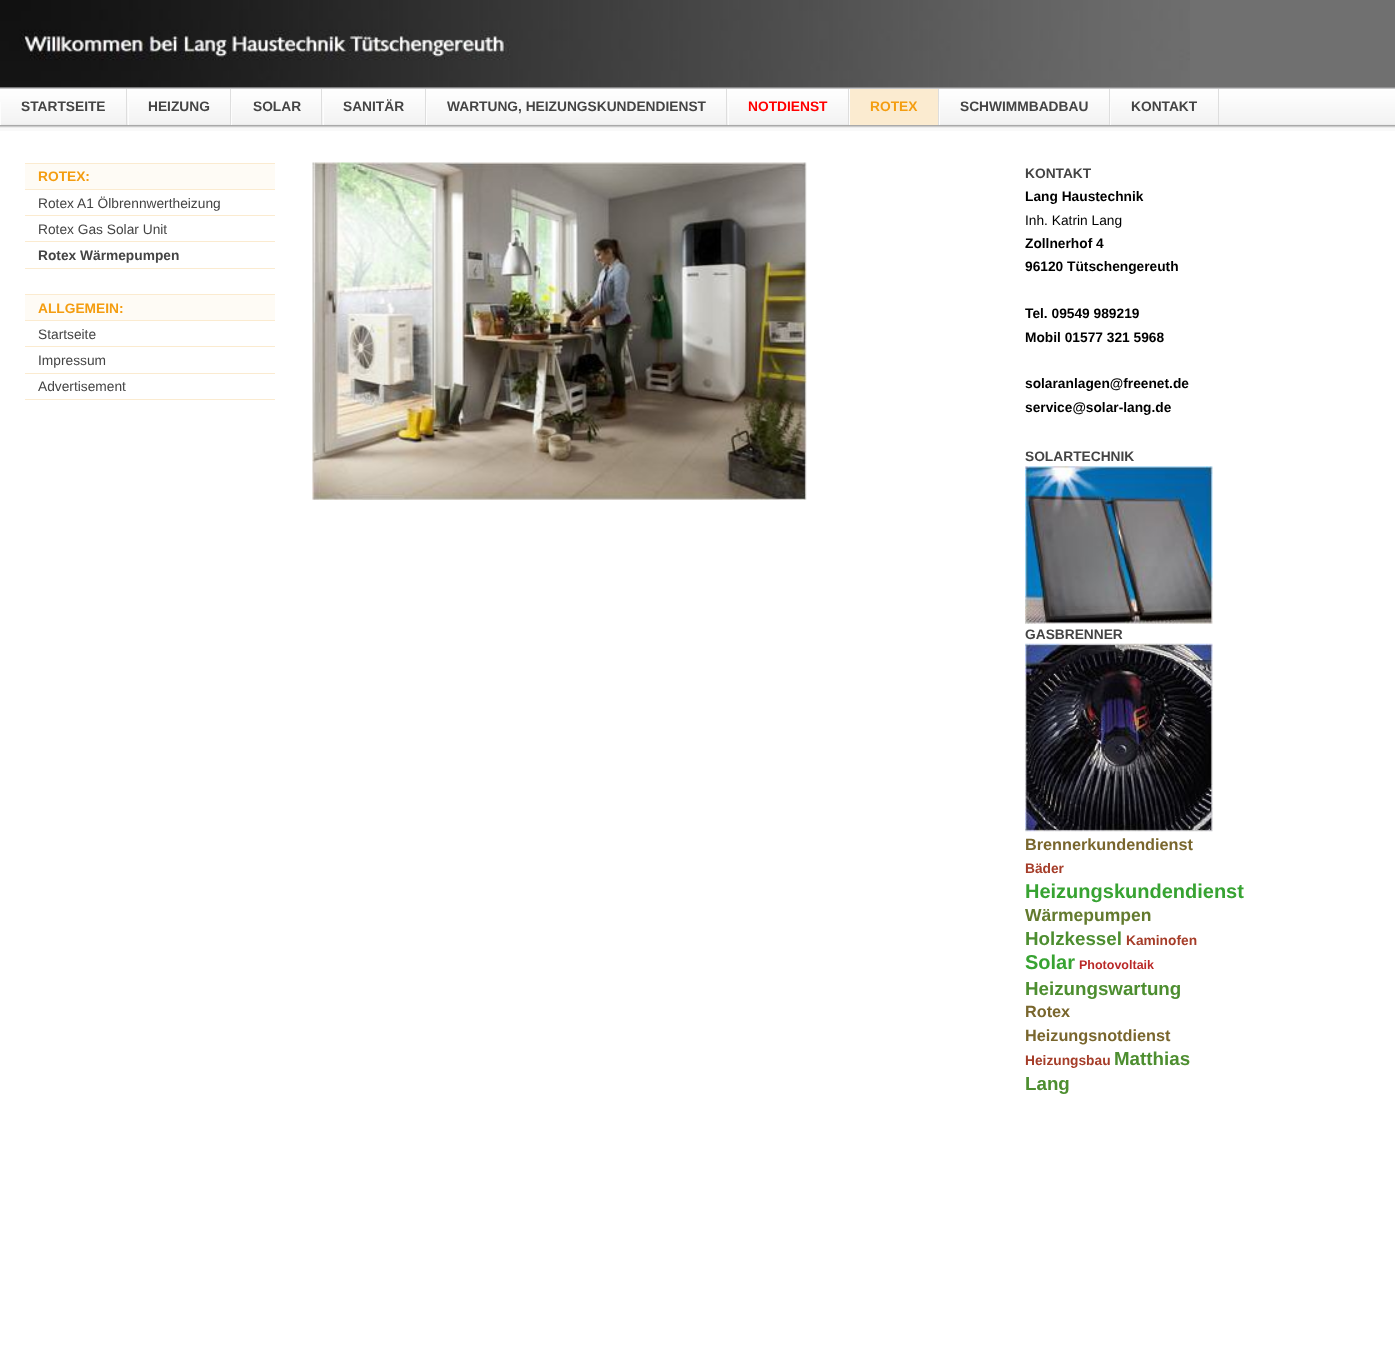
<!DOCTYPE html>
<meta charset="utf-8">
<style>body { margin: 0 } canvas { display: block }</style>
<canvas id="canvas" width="1395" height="1357"></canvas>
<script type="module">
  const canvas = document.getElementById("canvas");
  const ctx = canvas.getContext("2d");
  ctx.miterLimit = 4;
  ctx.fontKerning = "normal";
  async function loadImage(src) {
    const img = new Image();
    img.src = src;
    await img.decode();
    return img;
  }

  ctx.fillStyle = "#ffffff";
  ctx.fillRect(0, 0, 1395, 1357);
  ctx.fillStyle = "#707070";
  ctx.fillRect(0, 0, 1395, 88);
  ctx.drawImage(await loadImage("img1.png"), 0, 0, 1190, 88);
  ctx.fillStyle = "#f9f9f9";
  ctx.fillRect(0, 127, 1395, 4);
  ctx.drawImage(await loadImage("img2.png"), 0, 87, 1395, 41);
  ctx.fillStyle = "#dedede";
  ctx.fillRect(126, 89, 1, 36);
  ctx.fillStyle = "#fdfdfd";
  ctx.fillRect(0, 102, 1, 23);
  ctx.font = "bold 13.75px Liberation Sans";
  ctx.fillStyle = "#444444";
  ctx.fillText("STARTSEITE", 21, 111);
  ctx.fillStyle = "#dedede";
  ctx.fillRect(230, 89, 1, 36);
  ctx.fillStyle = "#fdfdfd";
  ctx.fillRect(128, 102, 1, 23);
  ctx.fillStyle = "#444444";
  ctx.fillText("HEIZUNG", 148, 111);
  ctx.fillStyle = "#dedede";
  ctx.fillRect(321, 89, 1, 36);
  ctx.fillStyle = "#fdfdfd";
  ctx.fillRect(231, 102, 1, 23);
  ctx.fillStyle = "#444444";
  ctx.fillText("SOLAR", 253, 111);
  ctx.fillStyle = "#dedede";
  ctx.fillRect(425, 89, 1, 36);
  ctx.fillStyle = "#fdfdfd";
  ctx.fillRect(323, 102, 1, 23);
  ctx.fillStyle = "#444444";
  ctx.fillText("SANITÄR", 343, 111);
  ctx.fillStyle = "#dedede";
  ctx.fillRect(726, 89, 1, 36);
  ctx.fillStyle = "#fdfdfd";
  ctx.fillRect(426, 102, 1, 23);
  ctx.fillStyle = "#444444";
  ctx.fillText("WARTUNG, HEIZUNGSKUNDENDIENST", 447, 111);
  ctx.fillStyle = "#dedede";
  ctx.fillRect(848, 89, 1, 36);
  ctx.fillStyle = "#fdfdfd";
  ctx.fillRect(728, 102, 1, 23);
  ctx.fillStyle = "#ff0000";
  ctx.fillText("NOTDIENST", 748, 111);
  ctx.fillStyle = "#fbebd0";
  ctx.fillRect(850, 89, 88, 36);
  ctx.fillStyle = "#dedede";
  ctx.fillRect(938, 89, 1, 36);
  ctx.fillStyle = "#fdfdfd";
  ctx.fillRect(849, 102, 1, 23);
  ctx.fillStyle = "#f49d10";
  ctx.fillText("ROTEX", 870, 111);
  ctx.fillStyle = "#dedede";
  ctx.fillRect(1109, 89, 1, 36);
  ctx.fillStyle = "#fdfdfd";
  ctx.fillRect(939, 102, 1, 23);
  ctx.fillStyle = "#444444";
  ctx.fillText("SCHWIMMBADBAU", 960, 111);
  ctx.fillStyle = "#dedede";
  ctx.fillRect(1218, 89, 1, 36);
  ctx.fillStyle = "#fdfdfd";
  ctx.fillRect(1110, 102, 1, 23);
  ctx.fillStyle = "#444444";
  ctx.fillText("KONTAKT", 1131, 111);
  ctx.fillStyle = "#fefbf5";
  ctx.fillRect(25, 164, 250, 25);
  ctx.fillStyle = "#fbebd0";
  ctx.fillRect(25, 163, 250, 1);
  ctx.fillRect(25, 189, 250, 1);
  ctx.fillStyle = "#f49d10";
  ctx.fillText("ROTEX:", 38, 181);
  ctx.fillStyle = "#fbebd0";
  ctx.fillRect(25, 215, 250, 1);
  ctx.font = "13.75px Liberation Sans";
  ctx.fillStyle = "#444444";
  ctx.fillText("Rotex A1 Ölbrennwertheizung", 38, 208);
  ctx.fillStyle = "#fbebd0";
  ctx.fillRect(25, 241, 250, 1);
  ctx.fillStyle = "#444444";
  ctx.fillText("Rotex Gas Solar Unit", 38, 234);
  ctx.fillStyle = "#fbebd0";
  ctx.fillRect(25, 268, 250, 1);
  ctx.font = "bold 13.75px Liberation Sans";
  ctx.fillStyle = "#444444";
  ctx.fillText("Rotex Wärmepumpen", 38, 260);
  ctx.fillStyle = "#fefbf5";
  ctx.fillRect(25, 295, 250, 25);
  ctx.fillStyle = "#fbebd0";
  ctx.fillRect(25, 294, 250, 1);
  ctx.fillRect(25, 320, 250, 1);
  ctx.fillStyle = "#f49d10";
  ctx.fillText("ALLGEMEIN:", 38, 313);
  ctx.fillStyle = "#fbebd0";
  ctx.fillRect(25, 346, 250, 1);
  ctx.font = "13.75px Liberation Sans";
  ctx.fillStyle = "#444444";
  ctx.fillText("Startseite", 38, 339);
  ctx.fillStyle = "#fbebd0";
  ctx.fillRect(25, 373, 250, 1);
  ctx.fillStyle = "#444444";
  ctx.fillText("Impressum", 38, 365);
  ctx.fillStyle = "#fbebd0";
  ctx.fillRect(25, 399, 250, 1);
  ctx.fillStyle = "#444444";
  ctx.fillText("Advertisement", 38, 391);
  ctx.drawImage(await loadImage("img3.png"), 312, 162, 495, 338);
  ctx.font = "bold 13.75px Liberation Sans";
  ctx.fillText("KONTAKT", 1025, 178);
  ctx.fillStyle = "#000000";
  ctx.fillText("Lang Haustechnik", 1025, 201);
  ctx.font = "13.75px Liberation Sans";
  ctx.fillText("Inh. Katrin Lang", 1025, 225);
  ctx.font = "bold 13.75px Liberation Sans";
  ctx.fillText("Zollnerhof 4", 1025, 248);
  ctx.fillText("96120 Tütschengereuth", 1025, 271);
  ctx.fillText("Tel. 09549 989219", 1025, 318);
  ctx.fillText("Mobil 01577 321 5968", 1025, 342);
  ctx.fillText("solaranlagen@freenet.de", 1025, 388);
  ctx.fillText("service@solar-lang.de", 1025, 412);
  ctx.fillStyle = "#444444";
  ctx.fillText("SOLARTECHNIK", 1025, 461);
  ctx.drawImage(await loadImage("img4.png"), 1025, 466, 188, 158);
  ctx.fillText("GASBRENNER", 1025, 639);
  ctx.drawImage(await loadImage("img5.png"), 1025, 643, 188, 189);
  ctx.font = "bold 16.25px Liberation Sans";
  ctx.fillStyle = "#79662d";
  ctx.fillText("Brennerkundendienst", 1025, 850);
  ctx.font = "bold 13.75px Liberation Sans";
  ctx.fillStyle = "#a53d29";
  ctx.fillText("Bäder", 1025, 873);
  ctx.font = "bold 20px Liberation Sans";
  ctx.fillStyle = "#37a332";
  ctx.fillText("Heizungskundendienst", 1025, 898);
  ctx.font = "bold 17.5px Liberation Sans";
  ctx.fillStyle = "#637a2e";
  ctx.fillText("Wärmepumpen", 1025, 921);
  ctx.font = "bold 18.75px Liberation Sans";
  ctx.fillStyle = "#4d8e30";
  ctx.fillText("Holzkessel", 1025, 945);
  ctx.font = "bold 13.75px Liberation Sans";
  ctx.fillStyle = "#a53d29";
  ctx.fillText("Kaminofen", 1126, 945);
  ctx.font = "bold 20px Liberation Sans";
  ctx.fillStyle = "#37a332";
  ctx.fillText("Solar", 1025, 969);
  ctx.font = "bold 12.5px Liberation Sans";
  ctx.fillStyle = "#ba2928";
  ctx.fillText("Photovoltaik", 1079, 969);
  ctx.font = "bold 18.75px Liberation Sans";
  ctx.fillStyle = "#4d8e30";
  ctx.fillText("Heizungswartung", 1025, 995);
  ctx.font = "bold 16.25px Liberation Sans";
  ctx.fillStyle = "#79662d";
  ctx.fillText("Rotex", 1025, 1017);
  ctx.fillText("Heizungsnotdienst", 1025, 1041);
  ctx.font = "bold 13.75px Liberation Sans";
  ctx.fillStyle = "#a53d29";
  ctx.fillText("Heizungsbau", 1025, 1065);
  ctx.font = "bold 18.75px Liberation Sans";
  ctx.fillStyle = "#4d8e30";
  ctx.fillText("Matthias", 1114, 1065);
  ctx.fillText("Lang", 1025, 1090);
</script>
